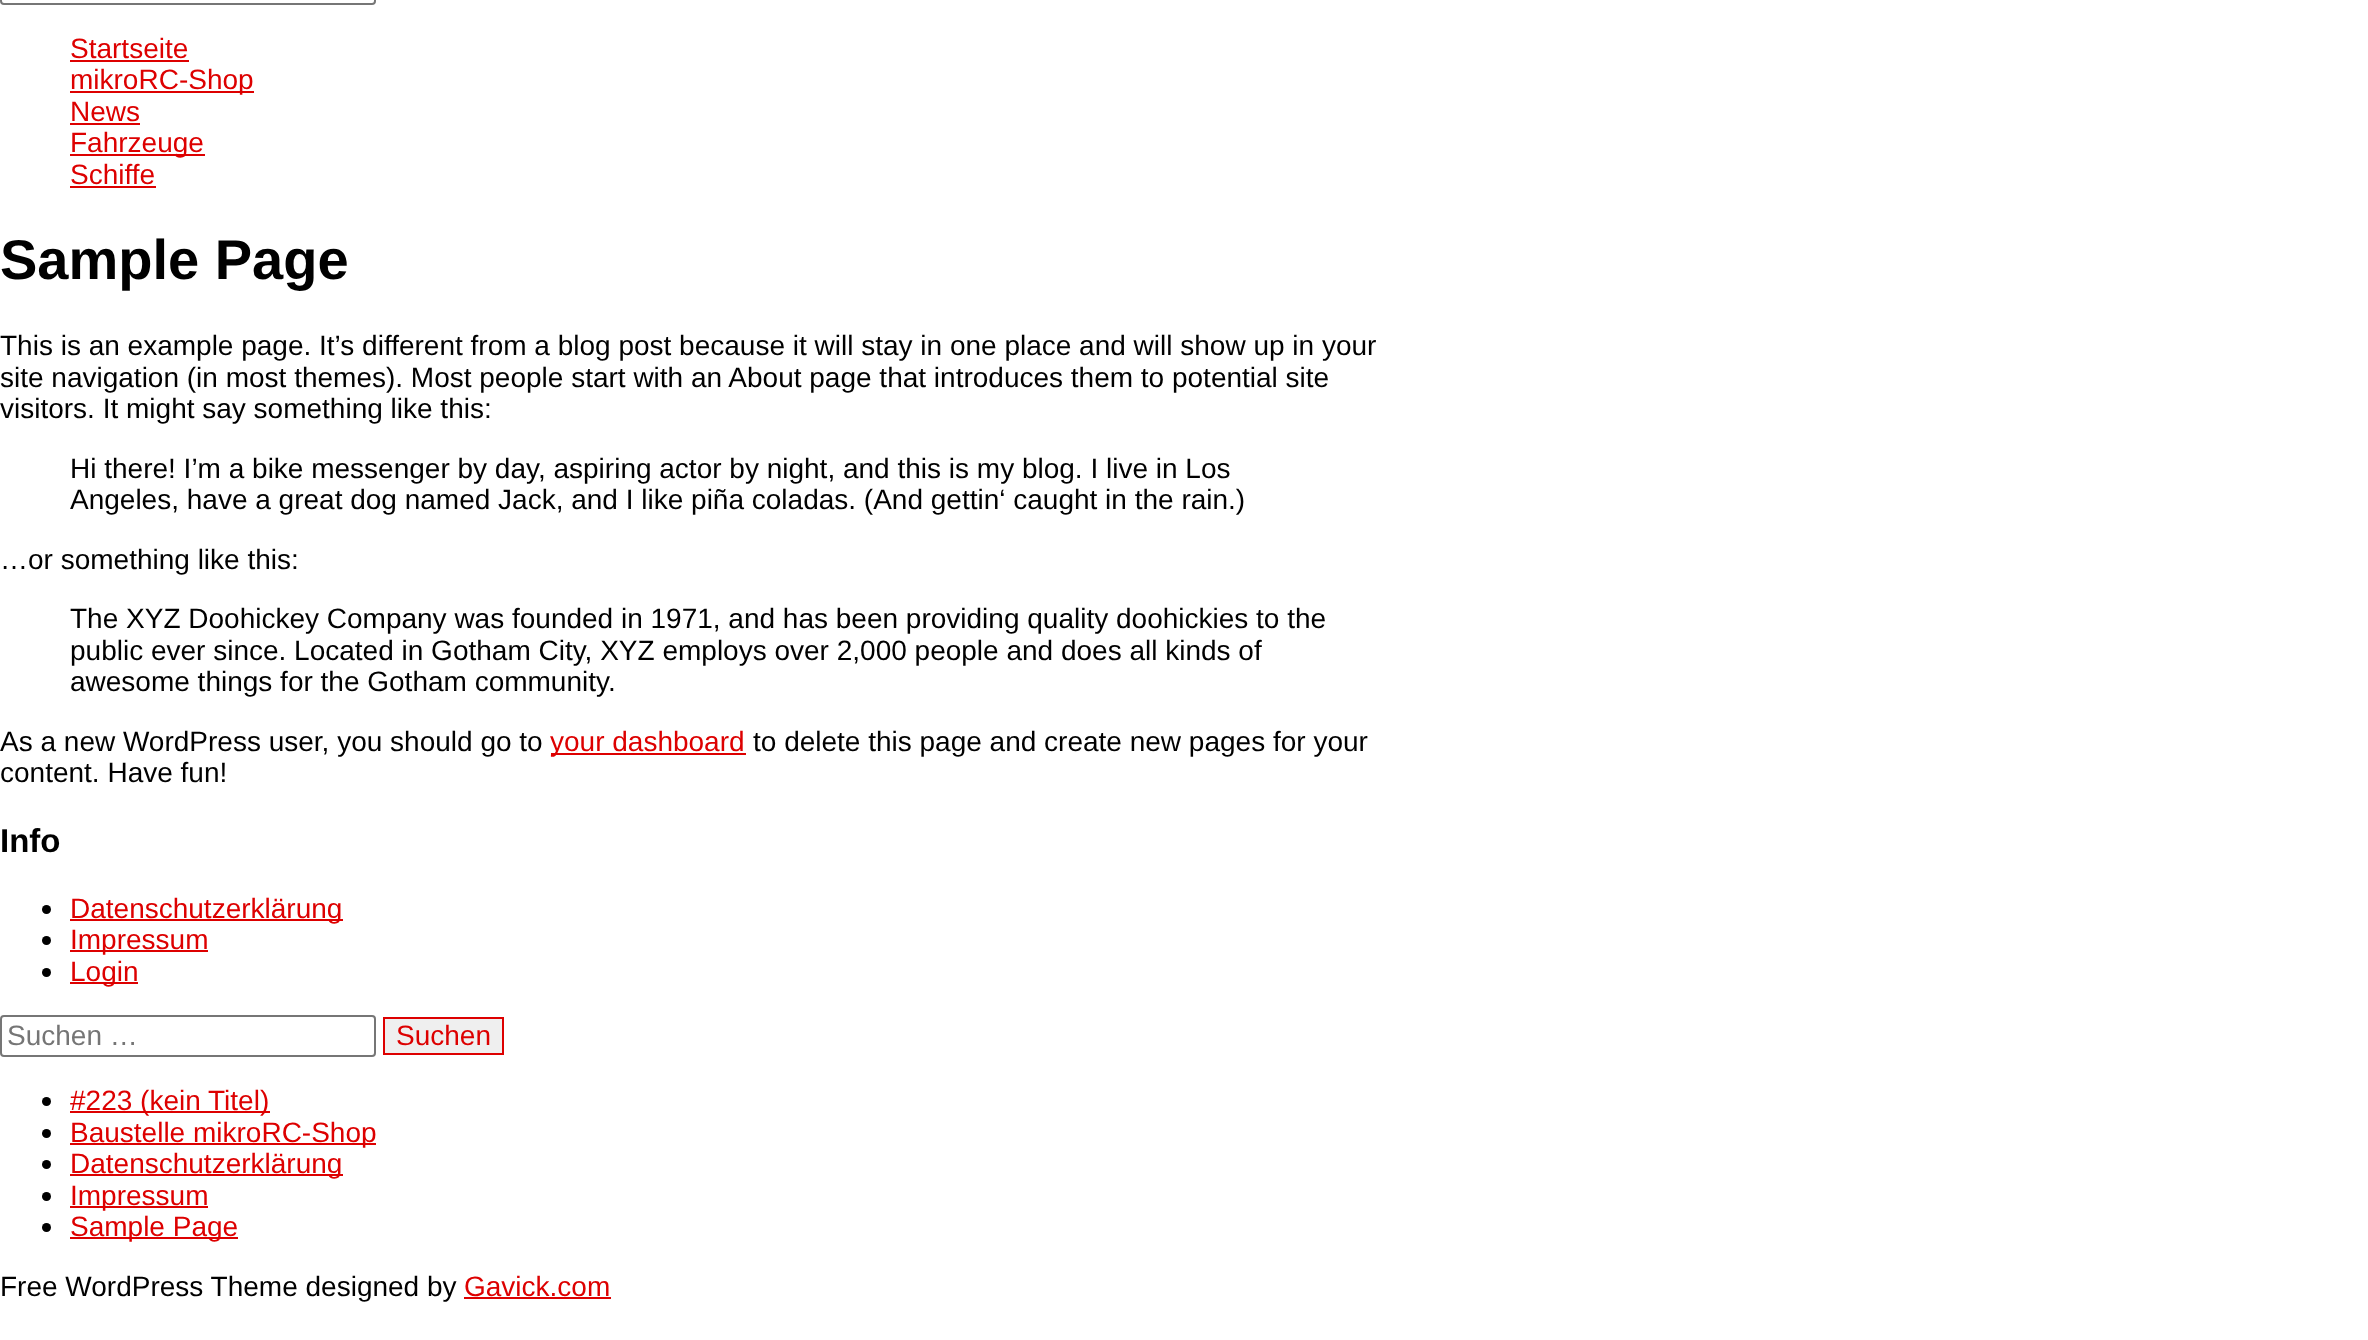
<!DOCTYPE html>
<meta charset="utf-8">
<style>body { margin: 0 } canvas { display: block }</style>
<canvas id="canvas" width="2368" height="1340"></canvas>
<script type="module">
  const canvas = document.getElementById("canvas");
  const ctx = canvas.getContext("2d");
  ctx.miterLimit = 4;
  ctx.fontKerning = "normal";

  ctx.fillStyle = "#ffffff";
  ctx.fillRect(0, 0, 2368, 1340);
  ctx.beginPath();
  ctx.roundRect(1, -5, 374, 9, 3);
  ctx.strokeStyle = "#767676";
  ctx.lineWidth = 2;
  ctx.stroke();
  ctx.font = "28px Liberation Sans";
  ctx.fillStyle = "#dd0000";
  ctx.fillText("Startseite", 70, 58);
  ctx.fillRect(70, 60, 119, 2);
  ctx.fillRect(70, 91, 184, 2);
  ctx.fillText("mikroRC-Shop", 70, 89);
  ctx.fillText("News", 70, 121);
  ctx.fillRect(70, 123, 70, 2);
  ctx.fillRect(70, 154, 135, 2);
  ctx.fillText("Fahrzeuge", 70, 152);
  ctx.fillText("Schiffe", 70, 184);
  ctx.fillRect(70, 186, 86, 2);
  ctx.font = "bold 56px Liberation Sans";
  ctx.fillStyle = "#000000";
  ctx.fillText("Sample Page", 0, 279);
  ctx.font = "28px Liberation Sans";
  ctx.fillText("This is an example page. It’s different from a blog post because it will stay in one place and will show up in your", 0, 355);
  ctx.fillText("site navigation (in most themes). Most people start with an About page that introduces them to potential site", 0, 387);
  ctx.fillText("visitors. It might say something like this:", 0, 418);
  ctx.fillText("Hi there! I’m a bike messenger by day, aspiring actor by night, and this is my blog. I live in Los", 70, 478);
  ctx.fillText("Angeles, have a great dog named Jack, and I like piña coladas. (And gettin‘ caught in the rain.)", 70, 509);
  ctx.fillText("…or something like this:", 0, 569);
  ctx.fillText("The XYZ Doohickey Company was founded in 1971, and has been providing quality doohickies to the", 70, 628);
  ctx.fillText("public ever since. Located in Gotham City, XYZ employs over 2,000 people and does all kinds of", 70, 660);
  ctx.fillText("awesome things for the Gotham community.", 70, 691);
  ctx.fillText("As a new WordPress user, you should go to", 0, 751);
  ctx.fillStyle = "#dd0000";
  ctx.fillRect(551, 753, 195, 2);
  ctx.fillText("your dashboard", 550, 751);
  ctx.fillStyle = "#000000";
  ctx.fillText("to delete this page and create new pages for your", 753, 751);
  ctx.fillText("content. Have fun!", 0, 782);
  ctx.font = "bold 33px Liberation Sans";
  ctx.fillText("Info", 0, 852);
  ctx.beginPath();
  ctx.arc(46.5, 909.5, 4.5, 0, Math.PI * 2);
  ctx.fill();
  ctx.fillStyle = "#dd0000";
  ctx.fillRect(70, 919, 273, 2);
  ctx.font = "28px Liberation Sans";
  ctx.fillText("Datenschutzerklärung", 70, 918);
  ctx.fillStyle = "#000000";
  ctx.beginPath();
  ctx.arc(46.5, 940.5, 4.5, 0, Math.PI * 2);
  ctx.fill();
  ctx.fillStyle = "#dd0000";
  ctx.fillRect(70, 950, 138, 2);
  ctx.fillText("Impressum", 70, 949);
  ctx.fillStyle = "#000000";
  ctx.beginPath();
  ctx.arc(46.5, 972.5, 4.5, 0, Math.PI * 2);
  ctx.fill();
  ctx.fillStyle = "#dd0000";
  ctx.fillRect(70, 982, 68, 2);
  ctx.fillText("Login", 70, 981);
  ctx.beginPath();
  ctx.roundRect(1, 1016, 374, 40, 3);
  ctx.stroke();
  ctx.fillStyle = "#757575";
  ctx.fillText("Suchen …", 7, 1045);
  ctx.fillStyle = "#efefef";
  ctx.beginPath();
  ctx.rect(384, 1018, 119, 36);
  ctx.fill();
  ctx.strokeStyle = "#dd0000";
  ctx.stroke();
  ctx.fillStyle = "#dd0000";
  ctx.fillText("Suchen", 396, 1045);
  ctx.fillStyle = "#000000";
  ctx.beginPath();
  ctx.arc(46.5, 1101.5, 4.5, 0, Math.PI * 2);
  ctx.fill();
  ctx.fillStyle = "#dd0000";
  ctx.fillRect(70, 1111, 200, 2);
  ctx.fillText("#223 (kein Titel)", 70, 1110);
  ctx.fillStyle = "#000000";
  ctx.beginPath();
  ctx.arc(46.5, 1133.5, 4.5, 0, Math.PI * 2);
  ctx.fill();
  ctx.fillStyle = "#dd0000";
  ctx.fillRect(70, 1143, 306, 2);
  ctx.fillText("Baustelle mikroRC-Shop", 70, 1142);
  ctx.fillStyle = "#000000";
  ctx.beginPath();
  ctx.arc(46.5, 1164.5, 4.5, 0, Math.PI * 2);
  ctx.fill();
  ctx.fillStyle = "#dd0000";
  ctx.fillRect(70, 1174, 273, 2);
  ctx.fillText("Datenschutzerklärung", 70, 1173);
  ctx.fillStyle = "#000000";
  ctx.beginPath();
  ctx.arc(46.5, 1196.5, 4.5, 0, Math.PI * 2);
  ctx.fill();
  ctx.fillStyle = "#dd0000";
  ctx.fillRect(70, 1206, 138, 2);
  ctx.fillText("Impressum", 70, 1205);
  ctx.fillStyle = "#000000";
  ctx.beginPath();
  ctx.arc(46.5, 1227.5, 4.5, 0, Math.PI * 2);
  ctx.fill();
  ctx.fillStyle = "#dd0000";
  ctx.fillRect(70, 1237, 168, 2);
  ctx.fillText("Sample Page", 70, 1236);
  ctx.fillStyle = "#000000";
  ctx.fillText("Free WordPress Theme designed by", 0, 1296);
  ctx.fillStyle = "#dd0000";
  ctx.fillText("Gavick.com", 464, 1296);
  ctx.fillRect(464, 1297, 147, 2);
</script>
